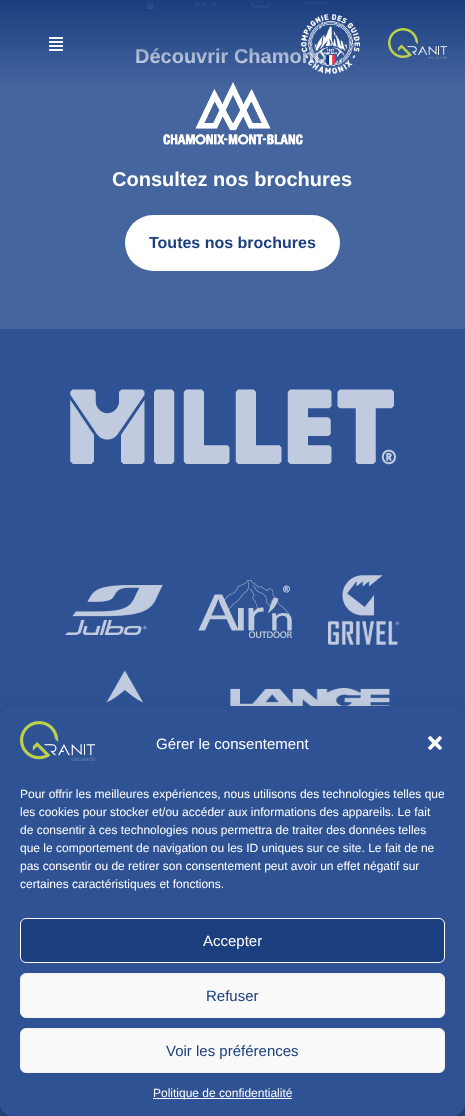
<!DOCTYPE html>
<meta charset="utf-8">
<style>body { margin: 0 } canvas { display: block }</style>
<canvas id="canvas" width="465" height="1116"></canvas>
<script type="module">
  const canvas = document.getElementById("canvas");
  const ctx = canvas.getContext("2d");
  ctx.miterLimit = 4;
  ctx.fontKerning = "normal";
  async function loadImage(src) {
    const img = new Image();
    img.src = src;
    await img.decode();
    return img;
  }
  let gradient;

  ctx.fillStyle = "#45659f";
  ctx.fillRect(0, 0, 465, 1116);
  ctx.fillStyle = "#ffffff";
  ctx.fillRect(147, 0, 6, 9);
  ctx.drawImage(await loadImage("img4.png"), 194, 1, 23, 5);
  ctx.drawImage(await loadImage("img5.png"), 249, 1, 23, 7);
  ctx.drawImage(await loadImage("img6.png"), 304, 1, 23, 4);
  ctx.font = "bold 20px Liberation Sans";
  ctx.fillText("Découvrir Chamonix", 135, 63);
  ctx.drawImage(await loadImage("img7.png"), 163, 82, 140, 63);
  gradient = ctx.createLinearGradient(233, 0, 233, 88);
  gradient.addColorStop(0, "#1a3e7e");
  gradient.addColorStop(1, "rgba(26, 62, 126, 0)");
  ctx.fillStyle = gradient;
  ctx.fillRect(0, 0, 465, 86);
  ctx.drawImage(await loadImage("img1.png"), 49, 37, 14, 14);
  ctx.drawImage(await loadImage("img2.png"), 301, 14, 59, 60);
  ctx.drawImage(await loadImage("img3.png"), 388, 28, 59, 31);
  ctx.fillStyle = "#ffffff";
  ctx.fillText("Consultez nos brochures", 112, 186);
  ctx.beginPath();
  ctx.roundRect(125, 215, 215, 56, 28);
  ctx.fill();
  ctx.font = "bold 16px Liberation Sans";
  ctx.fillStyle = "#1a3e7e";
  ctx.fillText("Toutes nos brochures", 149, 248);
  ctx.fillStyle = "#2e5293";
  ctx.fillRect(0, 329, 465, 787);
  ctx.drawImage(await loadImage("img8.png"), 70, 389, 326, 76);
  ctx.drawImage(await loadImage("img9.png"), 65, 585, 98, 50);
  ctx.drawImage(await loadImage("img10.png"), 198, 580, 94, 59);
  ctx.drawImage(await loadImage("img11.png"), 328, 575, 72, 70);
  ctx.drawImage(await loadImage("img12.png"), 106, 670, 37, 33);
  ctx.drawImage(await loadImage("img13.png"), 230, 688, 160, 18);
  ctx.fillStyle = "rgba(0, 0, 0, 0.23)";
  ctx.filter = "blur(3px)";
  ctx.beginPath();
  ctx.roundRect(0, 712, 465, 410, 12);
  ctx.fill();
  ctx.filter = "none";
  ctx.fillStyle = "rgba(0, 0, 0, 0.19)";
  ctx.filter = "blur(10px)";
  ctx.beginPath();
  ctx.roundRect(0, 716, 465, 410, 12);
  ctx.fill();
  ctx.filter = "none";
  ctx.fillStyle = "#2e5293";
  ctx.beginPath();
  ctx.roundRect(0, 706, 465, 410, 12);
  ctx.fill();
  ctx.drawImage(await loadImage("img14.png"), 20, 721, 75, 40);
  ctx.font = "15px Liberation Sans";
  ctx.fillStyle = "#ffffff";
  ctx.fillText("Gérer le consentement", 156, 749);
  ctx.drawImage(await loadImage("img15.png"), 428, 736, 14, 14);
  ctx.font = "12px Liberation Sans";
  ctx.fillText("Pour offrir les meilleures expériences, nous utilisons des technologies telles que", 20, 798);
  ctx.fillText("les cookies pour stocker et/ou accéder aux informations des appareils. Le fait", 20, 816);
  ctx.fillText("de consentir à ces technologies nous permettra de traiter des données telles", 20, 834);
  ctx.fillText("que le comportement de navigation ou les ID uniques sur ce site. Le fait de ne", 20, 852);
  ctx.fillText("pas consentir ou de retirer son consentement peut avoir un effet négatif sur", 20, 870);
  ctx.fillText("certaines caractéristiques et fonctions.", 20, 888);
  ctx.fillStyle = "#1a3e7e";
  ctx.beginPath();
  ctx.roundRect(20.5, 918.5, 424, 44, 5.5);
  ctx.fill();
  ctx.strokeStyle = "#ffffff";
  ctx.stroke();
  ctx.font = "15px Liberation Sans";
  ctx.fillStyle = "#ffffff";
  ctx.fillText("Accepter", 203, 946);
  ctx.fillStyle = "#f9f9f9";
  ctx.beginPath();
  ctx.roundRect(20.5, 973.5, 424, 44, 5.5);
  ctx.fill();
  ctx.strokeStyle = "#f2f2f2";
  ctx.stroke();
  ctx.fillStyle = "#1a3e7e";
  ctx.fillText("Refuser", 206, 1001);
  ctx.fillStyle = "#f9f9f9";
  ctx.beginPath();
  ctx.roundRect(20.5, 1028.5, 424, 44, 5.5);
  ctx.fill();
  ctx.stroke();
  ctx.fillStyle = "#1a3e7e";
  ctx.fillText("Voir les préférences", 166, 1056);
  ctx.fillStyle = "#ffffff";
  ctx.fillRect(153, 1098, 139, 1);
  ctx.font = "12px Liberation Sans";
  ctx.fillText("Politique de confidentialité", 153, 1097);
</script>
